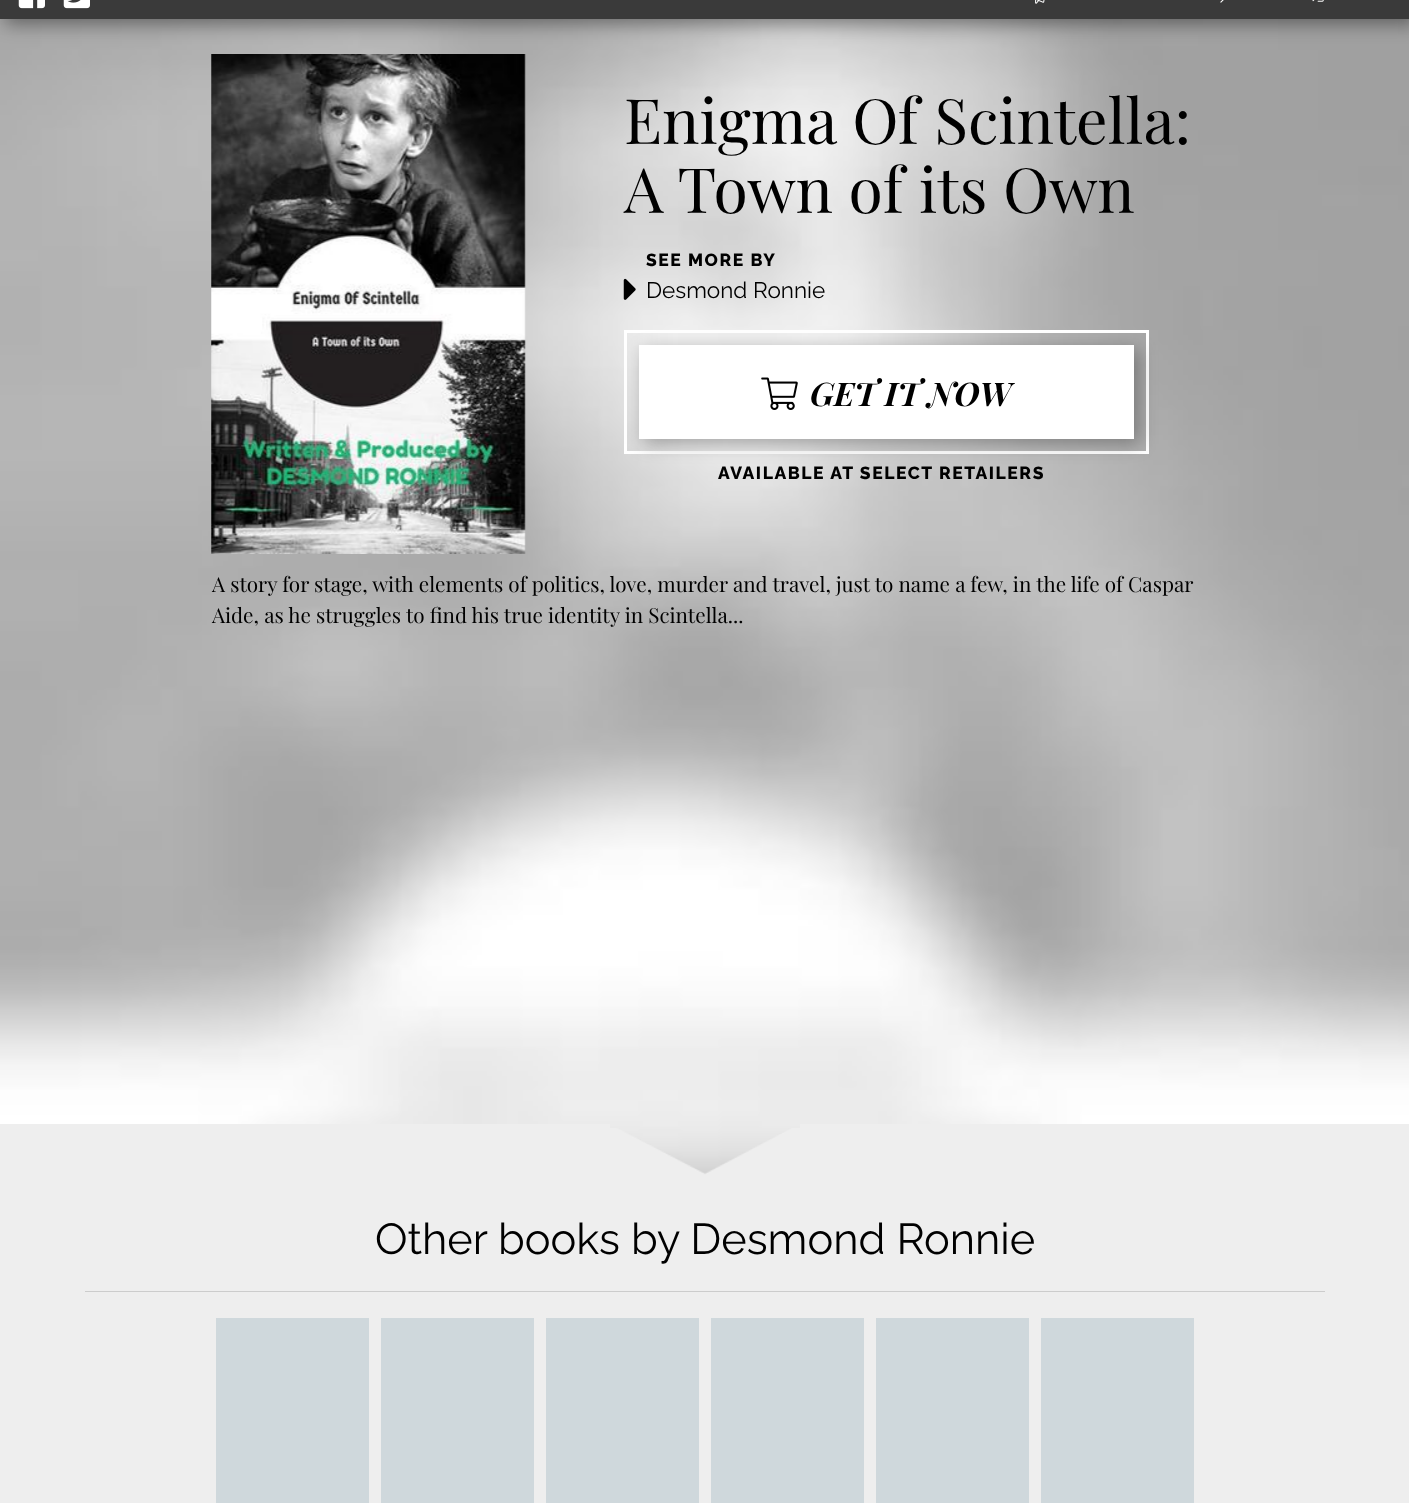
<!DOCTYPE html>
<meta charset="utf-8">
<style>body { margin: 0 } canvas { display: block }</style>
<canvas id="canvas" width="1409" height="1503"></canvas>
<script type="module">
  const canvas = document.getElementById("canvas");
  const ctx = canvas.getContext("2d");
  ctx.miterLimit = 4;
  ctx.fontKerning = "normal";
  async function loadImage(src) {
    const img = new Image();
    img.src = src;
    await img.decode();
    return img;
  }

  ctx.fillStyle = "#ffffff";
  ctx.fillRect(0, 0, 1409, 1503);
  ctx.drawImage(await loadImage("img1.png"), 0, 19, 1409, 1156);
  ctx.fillStyle = "rgba(0, 0, 0, 0.4)";
  ctx.filter = "blur(9px)";
  ctx.beginPath();
  ctx.rect(5, -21, 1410, 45);
  ctx.fill();
  ctx.filter = "none";
  ctx.fillStyle = "#3a3a3a";
  ctx.fillRect(0, 0, 1409, 19);
  ctx.drawImage(await loadImage("img2.png"), 18, 0, 27, 9);
  ctx.drawImage(await loadImage("img3.png"), 63, 0, 27, 9);
  ctx.drawImage(await loadImage("img4.png"), 1035, 0, 10, 4);
  ctx.drawImage(await loadImage("img5.png"), 1220, 0, 4, 3);
  ctx.drawImage(await loadImage("img6.png"), 1312, 0, 12, 2);
  ctx.drawImage(await loadImage("img7.png"), 211, 54, 315, 500);
  ctx.font = "62.5px Playfair Display";
  ctx.fillStyle = "#000000";
  ctx.fillText("Enigma Of Scintella:", 624, 144);
  ctx.fillText("A Town of its Own", 624, 213);
  ctx.drawImage(await loadImage("img8.png"), 623, 278, 13, 22);
  ctx.letterSpacing = "1.55px";
  ctx.font = "800 17.5px Raleway";
  ctx.fillText("SEE MORE BY", 646, 266);
  ctx.letterSpacing = "0px";
  ctx.font = "22.5px Raleway";
  ctx.fillText("Desmond Ronnie", 646, 298);
  ctx.strokeStyle = "#ffffff";
  ctx.lineWidth = 3;
  ctx.strokeRect(625.5, 331.5, 522, 121);
  ctx.fillStyle = "rgba(0, 0, 0, 0.3)";
  ctx.filter = "blur(9px)";
  ctx.beginPath();
  ctx.rect(644, 350, 495, 94);
  ctx.fill();
  ctx.filter = "none";
  ctx.fillStyle = "#ffffff";
  ctx.fillRect(639, 345, 495, 94);
  ctx.drawImage(await loadImage("img9.png"), 761, 377, 37, 33);
  ctx.font = "italic bold 32.5px Playfair Display";
  ctx.fillStyle = "#000000";
  ctx.fillText("GET IT NOW", 810, 406);
  ctx.letterSpacing = "1.55px";
  ctx.font = "800 17.5px Raleway";
  ctx.fillText("AVAILABLE AT SELECT RETAILERS", 718, 479);
  ctx.letterSpacing = "0px";
  ctx.font = "20.7px Playfair Display";
  ctx.fillText("A story for stage, with elements of politics, love, murder and travel, just to name a few, in the life of Caspar", 212, 592);
  ctx.fillText("Aide, as he struggles to find his true identity in Scintella...", 212, 623);
  ctx.fillStyle = "#eeeeee";
  ctx.fillRect(0, 1124, 610, 51);
  ctx.drawImage(await loadImage("img10.png"), 610, 1128, 190, 47);
  ctx.fillRect(800, 1124, 609, 51);
  ctx.fillRect(0, 1175, 1409, 328);
  ctx.font = "43.3px Raleway";
  ctx.fillStyle = "#000000";
  ctx.fillText("Other books by Desmond Ronnie", 375, 1254);
  ctx.fillStyle = "#cccccc";
  ctx.fillRect(85, 1291, 1240, 1);
  ctx.fillStyle = "#cfd8dc";
  ctx.fillRect(216, 1318, 153, 185);
  ctx.fillRect(381, 1318, 153, 185);
  ctx.fillRect(546, 1318, 153, 185);
  ctx.fillRect(711, 1318, 153, 185);
  ctx.fillRect(876, 1318, 153, 185);
  ctx.fillRect(1041, 1318, 153, 185);
</script>
